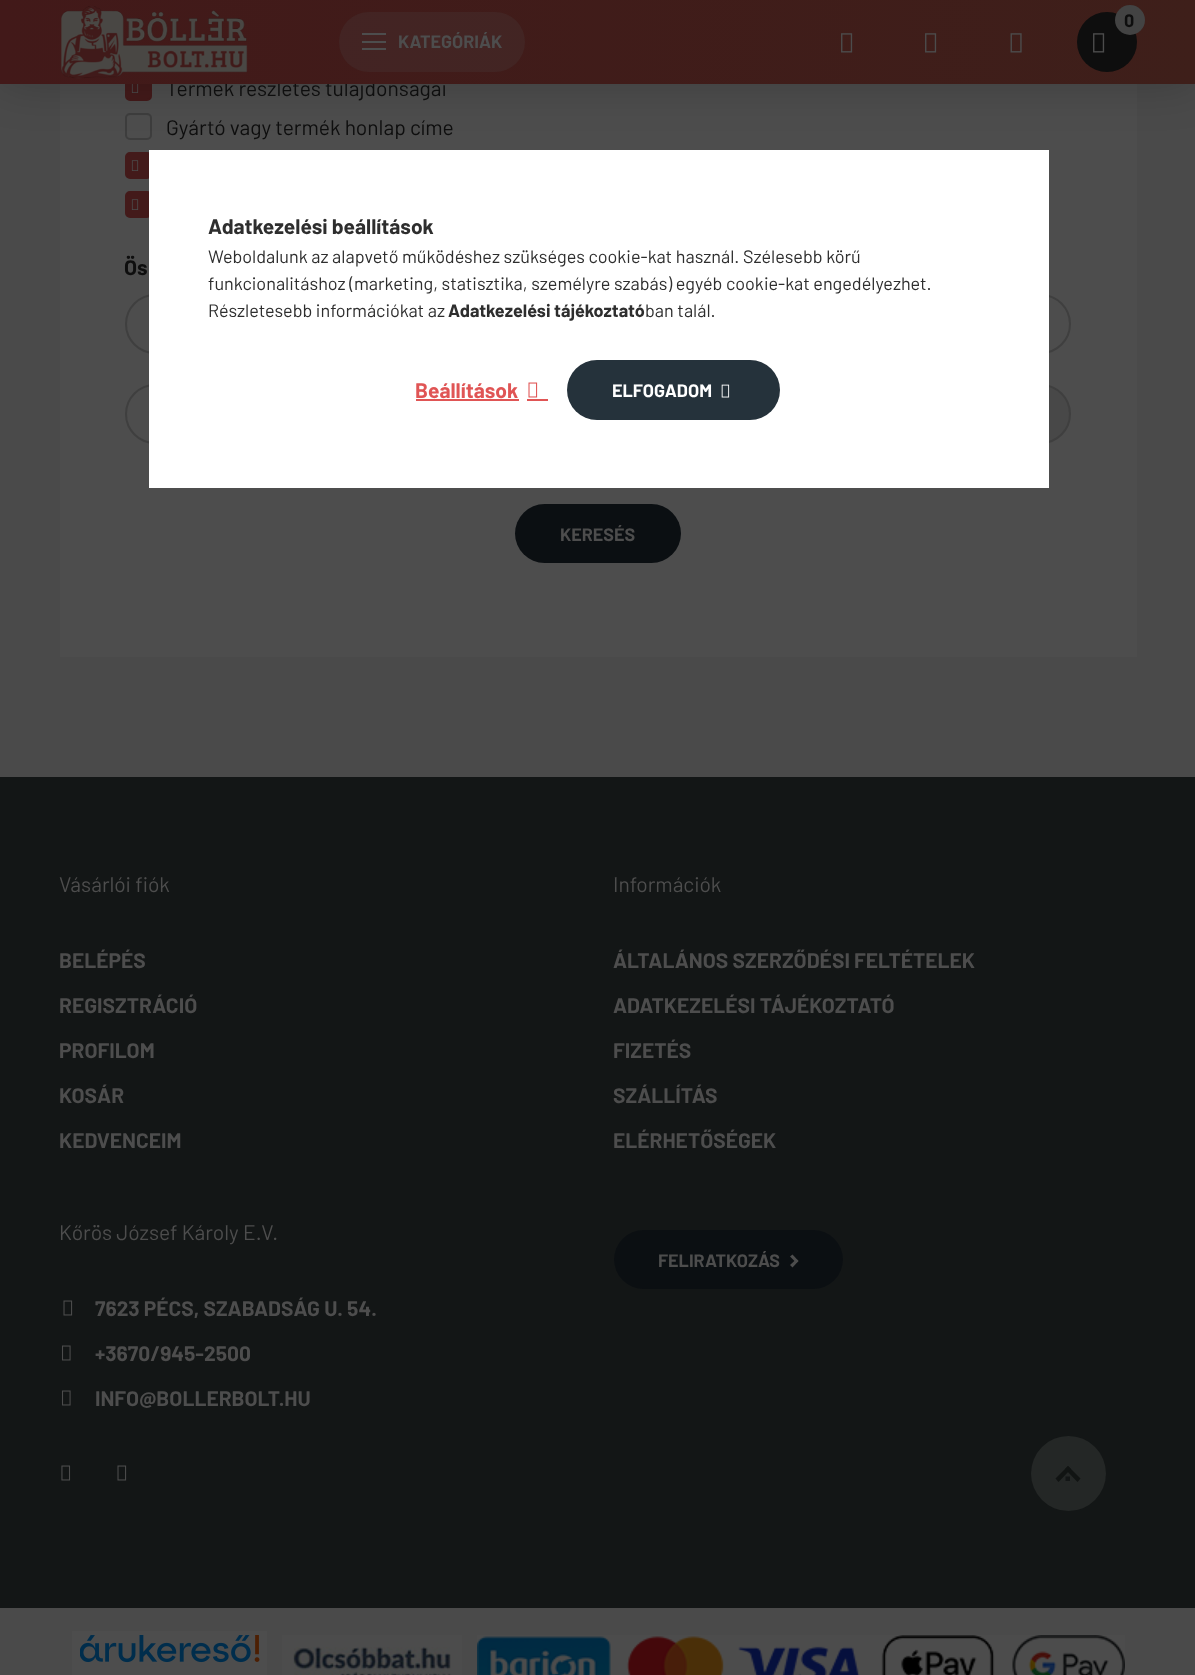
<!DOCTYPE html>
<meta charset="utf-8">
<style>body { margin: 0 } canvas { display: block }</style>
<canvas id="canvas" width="1195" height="1675"></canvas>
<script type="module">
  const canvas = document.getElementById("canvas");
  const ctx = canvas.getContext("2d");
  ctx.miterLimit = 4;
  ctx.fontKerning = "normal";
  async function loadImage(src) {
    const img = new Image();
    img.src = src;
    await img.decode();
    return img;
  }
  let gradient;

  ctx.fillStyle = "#4a4a4a";
  ctx.fillRect(0, 0, 1195, 1675);
  ctx.fillStyle = "#4d4d4d";
  ctx.fillRect(60, 84, 1077, 573);
  ctx.fillStyle = "#431a1a";
  ctx.beginPath();
  ctx.roundRect(126, 75, 25, 25, 4);
  ctx.fill();
  ctx.strokeStyle = "#431a1a";
  ctx.lineWidth = 2;
  ctx.stroke();
  ctx.drawImage(await loadImage("img6.png"), 131, 84, 8, 9);
  ctx.beginPath();
  ctx.roundRect(126, 114, 25, 25, 4);
  ctx.strokeStyle = "#3d3d3d";
  ctx.stroke();
  ctx.beginPath();
  ctx.roundRect(126, 153, 25, 25, 4);
  ctx.fill();
  ctx.strokeStyle = "#431a1a";
  ctx.stroke();
  ctx.fillStyle = "rgba(0, 0, 0, 0.2)";
  ctx.filter = "blur(22.5px)";
  ctx.beginPath();
  ctx.rect(0, 0, 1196, 84);
  ctx.fill();
  ctx.filter = "none";
  ctx.font = "21px Barlow";
  ctx.fillStyle = "#0e0e0e";
  ctx.fillText("Termék részletes tulajdonságai", 166, 96);
  gradient = ctx.createLinearGradient(0, 838, 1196, 838);
  gradient.addColorStop(0, "#421919");
  gradient.addColorStop(1, "#3e1f1a");
  ctx.fillStyle = gradient;
  ctx.fillRect(0, 0, 1195, 84);
  ctx.fillStyle = "#0e0e0e";
  ctx.beginPath();
  ctx.arc(1107, 42, 30, 0, Math.PI * 2);
  ctx.fill();
  ctx.fillStyle = "#434343";
  ctx.beginPath();
  ctx.arc(1130, 20, 15, 0, Math.PI * 2);
  ctx.fill();
  ctx.font = "bold 18px Barlow";
  ctx.fillStyle = "#0e0e0e";
  ctx.fillText("0", 1124, 27);
  ctx.drawImage(await loadImage("img1.png"), 1093, 33, 12, 20);
  ctx.drawImage(await loadImage("img2.png"), 841, 33, 12, 20);
  ctx.drawImage(await loadImage("img3.png"), 925, 33, 12, 20);
  ctx.drawImage(await loadImage("img4.png"), 1010, 33, 12, 20);
  ctx.drawImage(await loadImage("img5.png"), 61, 6, 187, 73);
  ctx.fillStyle = "rgba(77, 77, 77, 0.2)";
  ctx.beginPath();
  ctx.roundRect(339, 12, 186, 60, 30);
  ctx.fill();
  ctx.fillStyle = "#4d4d4d";
  ctx.fillRect(362, 33, 24, 2);
  ctx.fillRect(362, 41, 24, 2);
  ctx.fillRect(362, 48, 24, 2);
  ctx.fillText("KATEGÓRIÁK", 398, 48);
  ctx.font = "21px Barlow";
  ctx.fillStyle = "#0e0e0e";
  ctx.fillText("Gyártó vagy termék honlap címe", 166, 135);
  ctx.drawImage(await loadImage("img7.png"), 131, 160, 8, 11);
  ctx.fillStyle = "#431a1a";
  ctx.beginPath();
  ctx.roundRect(126, 192, 25, 25, 4);
  ctx.fill();
  ctx.stroke();
  ctx.drawImage(await loadImage("img7.png"), 131, 199, 8, 11);
  ctx.font = "bold 21px Barlow";
  ctx.fillStyle = "#0e0e0e";
  ctx.fillText("Ös", 124, 275);
  ctx.beginPath();
  ctx.roundRect(126, 295, 944, 58, 29);
  ctx.strokeStyle = "#3f3f3f";
  ctx.stroke();
  ctx.beginPath();
  ctx.roundRect(126, 385, 359, 58, [29, 0, 0, 29]);
  ctx.stroke();
  ctx.fillStyle = "#484848";
  ctx.beginPath();
  ctx.roundRect(990, 385, 80, 58, [0, 29, 29, 0]);
  ctx.fill();
  ctx.stroke();
  gradient = ctx.createLinearGradient(515, 533, 1014, 533);
  gradient.addColorStop(0.33, "#0b0f12");
  gradient.addColorStop(0.67, "#431a1a");
  ctx.fillStyle = gradient;
  ctx.beginPath();
  ctx.roundRect(515, 504, 166, 59, 29.5);
  ctx.fill();
  ctx.font = "bold 18px Barlow";
  ctx.fillStyle = "#4d4d4d";
  ctx.fillText("KERESÉS", 560, 541);
  ctx.fillStyle = "#131616";
  ctx.fillRect(0, 777, 1195, 831);
  ctx.font = "21px Barlow";
  ctx.fillStyle = "#4d4d4d";
  ctx.fillText("Vásárlói fiók", 59, 892);
  ctx.font = "bold 21px Barlow";
  ctx.fillText("BELÉPÉS", 59, 968);
  ctx.fillText("REGISZTRÁCIÓ", 59, 1013);
  ctx.fillText("PROFILOM", 59, 1058);
  ctx.fillText("KOSÁR", 59, 1103);
  ctx.fillText("KEDVENCEIM", 59, 1148);
  ctx.font = "21px Barlow";
  ctx.fillText("Információk", 613, 892);
  ctx.font = "bold 21px Barlow";
  ctx.fillText("ÁLTALÁNOS SZERZŐDÉSI FELTÉTELEK", 613, 968);
  ctx.fillText("ADATKEZELÉSI TÁJÉKOZTATÓ", 613, 1013);
  ctx.fillText("FIZETÉS", 613, 1058);
  ctx.fillText("SZÁLLÍTÁS", 613, 1103);
  ctx.fillText("ELÉRHETŐSÉGEK", 613, 1148);
  ctx.font = "21px Barlow";
  ctx.fillText("Kőrös József Károly E.V.", 59, 1240);
  ctx.drawImage(await loadImage("img8.png"), 63, 1300, 10, 16);
  ctx.font = "bold 21px Barlow";
  ctx.fillText("7623 PÉCS, SZABADSÁG U. 54.", 95, 1316);
  ctx.drawImage(await loadImage("img9.png"), 61, 1345, 10, 16);
  ctx.fillText("+3670/945-2500", 95, 1361);
  ctx.drawImage(await loadImage("img9.png"), 61, 1390, 10, 16);
  ctx.fillText("INFO@BOLLERBOLT.HU", 95, 1406);
  ctx.drawImage(await loadImage("img10.png"), 61, 1465, 10, 16);
  ctx.drawImage(await loadImage("img8.png"), 117, 1465, 10, 16);
  gradient = ctx.createLinearGradient(614, 1259, 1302, 1259);
  gradient.addColorStop(0.33, "#0b0f12");
  gradient.addColorStop(0.67, "#431a1a");
  ctx.fillStyle = gradient;
  ctx.beginPath();
  ctx.roundRect(614, 1230, 229, 59, 29.5);
  ctx.fill();
  ctx.font = "bold 18px Barlow";
  ctx.fillStyle = "#4d4d4d";
  ctx.fillText("FELIRATKOZÁS", 658, 1267);
  ctx.beginPath();
  ctx.moveTo(790, 1265);
  ctx.lineTo(796.5, 1259);
  ctx.lineTo(798.5, 1261);
  ctx.lineTo(792.5, 1267.5);
  ctx.closePath();
  ctx.fill();
  ctx.beginPath();
  ctx.moveTo(792.5, 1254.5);
  ctx.lineTo(798.5, 1261);
  ctx.lineTo(796.5, 1263);
  ctx.lineTo(790, 1256.5);
  ctx.closePath();
  ctx.fill();
  ctx.fillRect(72, 1631, 195, 44);
  ctx.drawImage(await loadImage("img11.png"), 80, 1635, 180, 28);
  ctx.drawImage(await loadImage("img12.png"), 282, 1635, 180, 40);
  ctx.drawImage(await loadImage("img13.png"), 477, 1635, 648, 40);
  ctx.fillStyle = "#ffffff";
  ctx.fillRect(149, 150, 900, 338);
  ctx.font = "bold 21px Barlow";
  ctx.fillStyle = "#2e2e2e";
  ctx.fillText("Adatkezelési beállítások", 208, 234);
  ctx.font = "18px Barlow";
  ctx.fillText("Weboldalunk az alapvető működéshez szükséges cookie-kat használ. Szélesebb körű", 208, 263);
  ctx.fillText("funkcionalitáshoz (marketing, statisztika, személyre szabás) egyéb cookie-kat engedélyezhet.", 208, 290);
  ctx.fillText("Részletesebb információkat az", 208, 317);
  ctx.font = "bold 18px Barlow";
  ctx.fillText("Adatkezelési tájékoztató", 448, 317);
  ctx.font = "18px Barlow";
  ctx.fillText("ban talál.", 645, 317);
  ctx.font = "bold 21px Barlow";
  ctx.fillStyle = "#e05555";
  ctx.fillText("Beállítások", 415, 398);
  ctx.fillRect(416, 399, 103, 2);
  ctx.drawImage(await loadImage("img14.png"), 528, 382, 10, 16);
  ctx.fillRect(527, 399, 21, 2);
  gradient = ctx.createLinearGradient(567, 390, 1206, 390);
  gradient.addColorStop(0.33, "#25323b");
  gradient.addColorStop(0.67, "#e05555");
  ctx.fillStyle = gradient;
  ctx.beginPath();
  ctx.roundRect(567, 360, 213, 60, 30);
  ctx.fill();
  ctx.font = "bold 18px Barlow";
  ctx.fillStyle = "#ffffff";
  ctx.fillText("ELFOGADOM", 612, 397);
  ctx.drawImage(await loadImage("img15.png"), 721, 384, 9, 14);
  ctx.fillStyle = "#242726";
  ctx.beginPath();
  ctx.arc(1068.5, 1473.5, 37.5, 0, Math.PI * 2);
  ctx.fill();
  ctx.fillStyle = "#111413";
  ctx.beginPath();
  ctx.moveTo(1077.5, 1482);
  ctx.lineTo(1065, 1469);
  ctx.lineTo(1068, 1466);
  ctx.lineTo(1080.5, 1478.5);
  ctx.closePath();
  ctx.fill();
  ctx.fillStyle = "#131616";
  ctx.beginPath();
  ctx.moveTo(1065.5, 1481);
  ctx.lineTo(1065.5, 1476.5);
  ctx.lineTo(1070, 1476.5);
  ctx.lineTo(1070, 1481);
  ctx.closePath();
  ctx.fill();
  ctx.fillStyle = "#111413";
  ctx.beginPath();
  ctx.moveTo(1055.5, 1478.5);
  ctx.lineTo(1068, 1466);
  ctx.lineTo(1071, 1469);
  ctx.lineTo(1058.5, 1482);
  ctx.closePath();
  ctx.fill();
</script>
